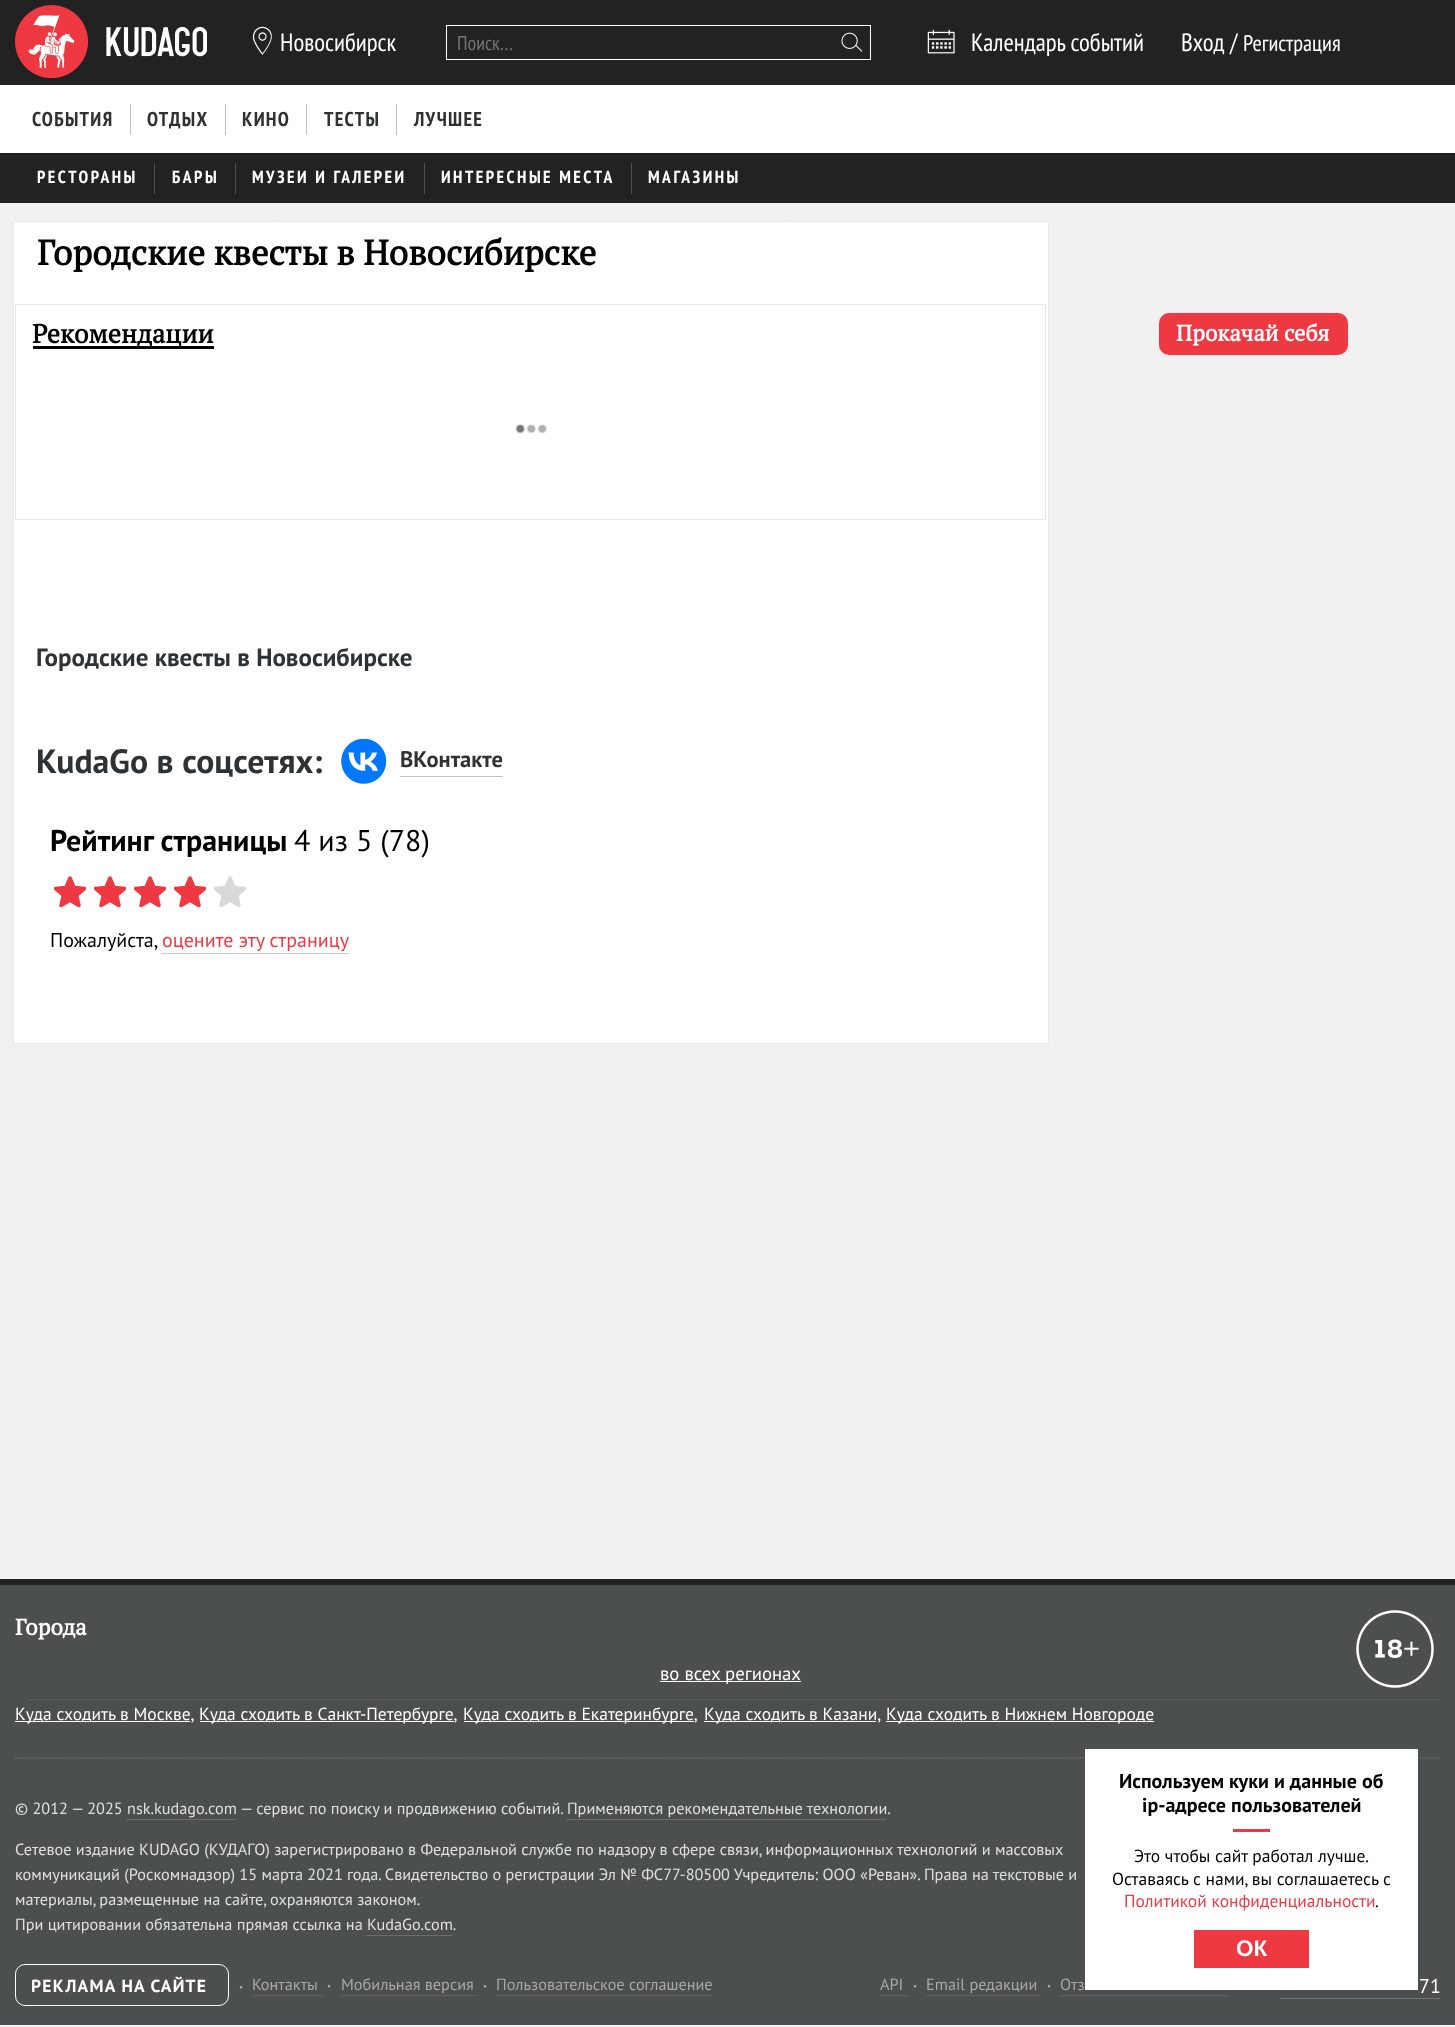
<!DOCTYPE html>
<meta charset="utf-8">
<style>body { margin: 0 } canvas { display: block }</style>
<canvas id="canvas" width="1455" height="2027"></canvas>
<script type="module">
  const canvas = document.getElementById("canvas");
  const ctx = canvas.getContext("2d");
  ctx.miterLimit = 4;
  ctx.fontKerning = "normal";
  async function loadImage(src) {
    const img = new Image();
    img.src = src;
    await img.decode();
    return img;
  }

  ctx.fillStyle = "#f1f1f1";
  ctx.fillRect(0, 0, 1455, 2027);
  ctx.fillStyle = "#222222";
  ctx.fillRect(0, 0, 1455, 85);
  ctx.drawImage(await loadImage("img1.png"), 15, 5, 192, 73);
  ctx.drawImage(await loadImage("img2.png"), 252, 26, 20, 29);
  ctx.font = "25px PT Sans Narrow";
  ctx.fillStyle = "#ffffff";
  ctx.fillText("Новосибирск", 280, 51);
  ctx.strokeStyle = "#ffffff";
  ctx.strokeRect(446.5, 25.5, 424, 34);
  ctx.font = "20px PT Sans Narrow";
  ctx.fillStyle = "#757575";
  ctx.fillText("Поиск…", 457, 50);
  ctx.drawImage(await loadImage("img3.png"), 841, 32, 22, 20);
  ctx.drawImage(await loadImage("img4.png"), 927, 29, 28, 25);
  ctx.font = "25px PT Sans Narrow";
  ctx.fillStyle = "#ffffff";
  ctx.fillText("Календарь событий", 971, 51);
  ctx.fillText("Вход", 1181, 51);
  ctx.fillText("/", 1230, 51);
  ctx.font = "22.5px PT Sans Narrow";
  ctx.fillText("Регистрация", 1243, 51);
  ctx.fillStyle = "#222222";
  ctx.fillRect(0, 153, 1455, 50);
  ctx.fillStyle = "rgba(0, 0, 0, 0.1)";
  ctx.filter = "blur(2px)";
  ctx.beginPath();
  ctx.rect(0, 89, 1455, 67);
  ctx.fill();
  ctx.filter = "none";
  ctx.fillStyle = "#ffffff";
  ctx.fillRect(0, 85, 1455, 68);
  ctx.letterSpacing = "1.25px";
  ctx.font = "bold 20px PT Sans Narrow";
  ctx.fillStyle = "#2f3235";
  ctx.fillText("СОБЫТИЯ", 32, 126);
  ctx.fillStyle = "#bdc2c1";
  ctx.fillRect(130, 104, 1, 31);
  ctx.fillStyle = "#2f3235";
  ctx.fillText("ОТДЫХ", 147, 126);
  ctx.fillStyle = "#bdc2c1";
  ctx.fillRect(225, 104, 1, 31);
  ctx.fillStyle = "#2f3235";
  ctx.fillText("КИНО", 242, 126);
  ctx.fillStyle = "#bdc2c1";
  ctx.fillRect(306, 104, 1, 31);
  ctx.fillStyle = "#2f3235";
  ctx.fillText("ТЕСТЫ", 324, 126);
  ctx.fillStyle = "#bdc2c1";
  ctx.fillRect(396, 104, 1, 31);
  ctx.fillStyle = "#2f3235";
  ctx.fillText("ЛУЧШЕЕ", 414, 126);
  ctx.letterSpacing = "2.5px";
  ctx.font = "bold 17.5px PT Sans Narrow";
  ctx.fillStyle = "#ffffff";
  ctx.fillText("РЕСТОРАНЫ", 37, 183);
  ctx.fillStyle = "#4c4f50";
  ctx.fillRect(154, 163, 1, 31);
  ctx.fillStyle = "#ffffff";
  ctx.fillText("БАРЫ", 172, 183);
  ctx.fillStyle = "#4c4f50";
  ctx.fillRect(235, 163, 1, 31);
  ctx.fillStyle = "#ffffff";
  ctx.fillText("МУЗЕИ И ГАЛЕРЕИ", 252, 183);
  ctx.fillStyle = "#4c4f50";
  ctx.fillRect(424, 163, 1, 31);
  ctx.fillStyle = "#ffffff";
  ctx.fillText("ИНТЕРЕСНЫЕ МЕСТА", 441, 183);
  ctx.fillStyle = "#4c4f50";
  ctx.fillRect(631, 163, 1, 31);
  ctx.fillStyle = "#ffffff";
  ctx.fillText("МАГАЗИНЫ", 648, 183);
  ctx.beginPath();
  ctx.rect(13.5, 221.5, 1035, 822);
  ctx.fill();
  ctx.strokeStyle = "#e6e8ea";
  ctx.stroke();
  ctx.letterSpacing = "0px";
  ctx.font = "bold 35px PT Serif";
  ctx.fillStyle = "#000000";
  ctx.fillText("Городские квесты в Новосибирске", 37, 265);
  ctx.strokeRect(15.5, 304.5, 1030, 215);
  ctx.fillRect(33, 346, 181, 3);
  ctx.font = "bold 26.25px PT Serif";
  ctx.fillText("Рекомендации", 32, 343);
  ctx.drawImage(await loadImage("img5.png"), 516, 423, 31, 11);
  ctx.font = "bold 25px PT Sans";
  ctx.fillStyle = "#2f3235";
  ctx.fillText("Городские квесты в Новосибирске", 36, 666);
  ctx.font = "bold 33.75px PT Sans";
  ctx.fillText("KudaGo в соцсетях:", 36, 773);
  ctx.drawImage(await loadImage("img6.png"), 341, 739, 45, 45);
  ctx.fillStyle = "#bdc2c1";
  ctx.fillRect(400, 776, 103, 1);
  ctx.font = "bold 22.5px PT Sans";
  ctx.fillStyle = "#2f3235";
  ctx.fillText("ВКонтакте", 400, 767);
  ctx.font = "bold 30px PT Sans";
  ctx.fillStyle = "#000000";
  ctx.fillText("Рейтинг страницы", 50, 851);
  ctx.font = "30px PT Sans";
  ctx.fillText("4 из 5 (78)", 294, 851);
  ctx.drawImage(await loadImage("img7.png"), 54, 876, 32, 32);
  ctx.drawImage(await loadImage("img7.png"), 94, 876, 32, 32);
  ctx.drawImage(await loadImage("img7.png"), 134, 876, 32, 32);
  ctx.drawImage(await loadImage("img7.png"), 174, 876, 32, 32);
  ctx.drawImage(await loadImage("img8.png"), 214, 876, 32, 32);
  ctx.font = "20px PT Sans";
  ctx.fillText("Пожалуйста,", 50, 947);
  ctx.fillStyle = "#ee3942";
  ctx.fillText("оцените эту страницу", 162, 947);
  ctx.fillStyle = "#cbcccc";
  ctx.fillRect(161, 953, 188, 1);
  ctx.fillStyle = "#ee3942";
  ctx.beginPath();
  ctx.roundRect(1159, 313, 189, 42, 10);
  ctx.fill();
  ctx.font = "bold 22.5px PT Serif";
  ctx.fillStyle = "#ffffff";
  ctx.fillText("Прокачай себя", 1176, 341);
  ctx.fillStyle = "#4c4f50";
  ctx.fillRect(0, 1585, 1455, 440);
  ctx.fillStyle = "#222222";
  ctx.fillRect(0, 1579, 1455, 6);
  ctx.fillStyle = "#ffffff";
  ctx.fillText("Города", 15, 1635);
  ctx.drawImage(await loadImage("img9.png"), 1356, 1610, 78, 78);
  ctx.fillStyle = "#5c5f60";
  ctx.fillRect(28, 1699, 1412, 1);
  ctx.fillStyle = "#424546";
  ctx.fillRect(28, 1698, 1412, 1);
  ctx.fillStyle = "#ffffff";
  ctx.fillRect(660, 1681, 141, 1);
  ctx.font = "18.75px PT Sans";
  ctx.fillText("во всех регионах", 660, 1680);
  ctx.fillRect(15, 1721, 175, 1);
  ctx.font = "17.5px PT Sans";
  ctx.fillText("Куда сходить в Москве,", 15, 1720);
  ctx.fillRect(200, 1721, 254, 1);
  ctx.fillText("Куда сходить в Санкт-Петербурге,", 199, 1720);
  ctx.fillRect(464, 1721, 230, 1);
  ctx.fillText("Куда сходить в Екатеринбурге,", 463, 1720);
  ctx.fillRect(704, 1721, 172, 1);
  ctx.fillText("Куда сходить в Казани,", 704, 1720);
  ctx.fillRect(886, 1721, 268, 1);
  ctx.fillText("Куда сходить в Нижнем Новгороде", 886, 1720);
  ctx.beginPath();
  ctx.moveTo(15, 1758);
  ctx.lineTo(1440, 1758);
  ctx.strokeStyle = "#787b7b";
  ctx.lineWidth = 1.2;
  ctx.setLineDash([1.25, 1.25]);
  ctx.stroke();
  ctx.font = "16.25px PT Sans";
  ctx.fillStyle = "#dee0e0";
  ctx.fillText("© 2012 — 2025 nsk.kudago.com", 15, 1814);
  ctx.fillText("— сервис по поиску и продвижению событий. Применяются рекомендательные технологии.", 240, 1814);
  ctx.fillStyle = "#696c6d";
  ctx.fillRect(126, 1819, 110, 1);
  ctx.fillRect(566, 1819, 320, 1);
  ctx.fillStyle = "#dee0e0";
  ctx.fillText("Сетевое издание KUDAGO (КУДАГО) зарегистрировано в Федеральной службе по надзору в сфере связи, информационных технологий и массовых", 15, 1855);
  ctx.fillText("коммуникаций (Роскомнадзор) 15 марта 2021 года. Свидетельство о регистрации Эл № ФС77-80500 Учредитель: ООО «Реван». Права на текстовые и", 15, 1880);
  ctx.fillText("материалы, размещенные на сайте, охраняются законом.", 15, 1905);
  ctx.fillText("При цитировании обязательна прямая ссылка на KudaGo.com.", 15, 1930);
  ctx.fillStyle = "#696c6d";
  ctx.fillRect(366, 1935, 87, 1);
  ctx.beginPath();
  ctx.roundRect(15.5, 1964.5, 213, 41, 9.5);
  ctx.strokeStyle = "#ffffff";
  ctx.lineWidth = 1;
  ctx.setLineDash([]);
  ctx.stroke();
  ctx.letterSpacing = "1.25px";
  ctx.font = "bold 17.5px PT Sans";
  ctx.fillStyle = "#ffffff";
  ctx.fillText("РЕКЛАМА НА САЙТЕ", 31, 1992);
  ctx.letterSpacing = "0px";
  ctx.font = "9px PT Sans";
  ctx.fillStyle = "#a6a8aa";
  ctx.fillText("•", 239, 1990);
  ctx.font = "16.25px PT Sans";
  ctx.fillText("Контакты", 252, 1990);
  ctx.fillStyle = "#5e6162";
  ctx.fillRect(253, 1995, 70, 1);
  ctx.font = "9px PT Sans";
  ctx.fillStyle = "#a6a8aa";
  ctx.fillText("•", 327, 1989);
  ctx.font = "16.25px PT Sans";
  ctx.fillText("Мобильная версия", 341, 1990);
  ctx.fillStyle = "#5e6162";
  ctx.fillRect(341, 1995, 137, 1);
  ctx.font = "9px PT Sans";
  ctx.fillStyle = "#a6a8aa";
  ctx.fillText("•", 483, 1989);
  ctx.font = "16.25px PT Sans";
  ctx.fillText("Пользовательское соглашение", 496, 1990);
  ctx.fillStyle = "#5e6162";
  ctx.fillRect(496, 1995, 217, 1);
  ctx.fillStyle = "#a6a8aa";
  ctx.fillText("API", 880, 1990);
  ctx.fillStyle = "#5e6162";
  ctx.fillRect(880, 1995, 28, 1);
  ctx.font = "9px PT Sans";
  ctx.fillStyle = "#a6a8aa";
  ctx.fillText("•", 913, 1989);
  ctx.font = "16.25px PT Sans";
  ctx.fillText("Email редакции", 926, 1990);
  ctx.fillStyle = "#5e6162";
  ctx.fillRect(926, 1995, 115, 1);
  ctx.font = "9px PT Sans";
  ctx.fillStyle = "#a6a8aa";
  ctx.fillText("•", 1047, 1989);
  ctx.font = "16.25px PT Sans";
  ctx.fillText("Отз", 1060, 1990);
  ctx.fillStyle = "#5e6162";
  ctx.fillRect(1060, 1995, 168, 1);
  ctx.font = "20px PT Sans";
  ctx.fillStyle = "#ffffff";
  ctx.fillText("71", 1419, 1993);
  ctx.fillStyle = "#707273";
  ctx.fillRect(1280, 1998, 160, 1);
  ctx.fillStyle = "#ffffff";
  ctx.fillRect(1085, 1749, 333, 241);
  ctx.font = "bold 20px PT Sans";
  ctx.fillStyle = "#000000";
  ctx.fillText("Используем куки и данные об", 1119, 1788);
  ctx.fillText("ip-адресе пользователей", 1142, 1812);
  ctx.fillStyle = "#ee3942";
  ctx.fillRect(1233, 1829, 37, 3);
  ctx.font = "17.5px PT Sans";
  ctx.fillStyle = "#000000";
  ctx.fillText("Это чтобы сайт работал лучше.", 1134, 1862);
  ctx.fillText("Оставаясь с нами, вы соглашаетесь с", 1112, 1885);
  ctx.fillStyle = "#ee3942";
  ctx.fillText("Политикой конфиденциальности", 1124, 1907);
  ctx.fillStyle = "#000000";
  ctx.fillText(".", 1375, 1907);
  ctx.fillStyle = "#ee3942";
  ctx.fillRect(1194, 1930, 115, 38);
  ctx.font = "bold 22.5px Liberation Sans";
  ctx.fillStyle = "#ffffff";
  ctx.fillText("ОК", 1236, 1956);
</script>
